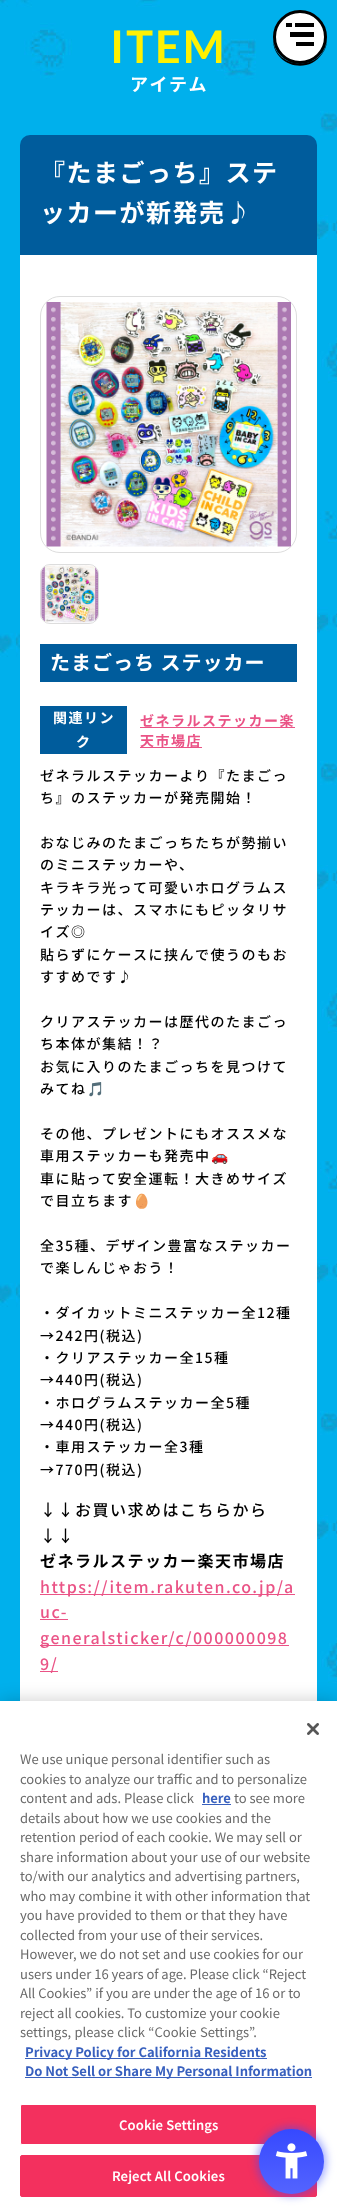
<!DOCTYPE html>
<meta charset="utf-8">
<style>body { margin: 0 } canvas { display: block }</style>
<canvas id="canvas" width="337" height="2207"></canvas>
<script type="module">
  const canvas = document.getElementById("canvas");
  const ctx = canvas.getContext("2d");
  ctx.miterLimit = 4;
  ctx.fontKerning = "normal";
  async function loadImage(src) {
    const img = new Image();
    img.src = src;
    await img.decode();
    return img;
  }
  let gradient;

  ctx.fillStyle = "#ffffff";
  ctx.fillRect(0, 0, 337, 2207);
  ctx.drawImage(await loadImage("img1.png"), 0, 0, 337, 1701);
  ctx.letterSpacing = "2px";
  ctx.font = "bold 45px Lato";
  ctx.fillStyle = "#fef102";
  ctx.fillText("ITEM", 110, 63);
  ctx.letterSpacing = "1.5px";
  ctx.font = "bold 18px Noto Sans JP";
  ctx.fillStyle = "#ffffff";
  ctx.fillText("アイテム", 130, 91);
  ctx.fillStyle = "#000000";
  ctx.beginPath();
  ctx.moveTo(273, 38);
  ctx.bezierCurveTo(272, 65, 307, 76, 322, 54);
  ctx.bezierCurveTo(326, 49, 327, 44, 327, 38);
  ctx.bezierCurveTo(326, 72, 274, 72, 273, 38);
  ctx.closePath();
  ctx.fill();
  ctx.fillStyle = "#ffffff";
  ctx.beginPath();
  ctx.arc(300, 37, 25.5, 0, Math.PI * 2);
  ctx.fill();
  ctx.strokeStyle = "#000000";
  ctx.lineWidth = 3;
  ctx.stroke();
  ctx.fillStyle = "#000000";
  ctx.fillRect(286, 23, 6, 4);
  ctx.fillRect(295, 23, 19, 4);
  ctx.fillRect(290, 32, 24, 5);
  ctx.fillRect(296, 42, 18, 4);
  ctx.fillStyle = "#005c9c";
  ctx.beginPath();
  ctx.roundRect(20, 135, 297, 120, [10, 10, 0, 0]);
  ctx.fill();
  ctx.font = "bold 25px Noto Sans JP";
  ctx.fillStyle = "#ffffff";
  ctx.fillText("『たまごっち』ステ", 40, 182);
  ctx.fillText("ッカーが新発売♪", 40, 222);
  ctx.fillRect(20, 255, 297, 1446);
  ctx.beginPath();
  ctx.roundRect(40.5, 296.5, 256, 256, 19.5);
  ctx.strokeStyle = "#dddddd";
  ctx.lineWidth = 1;
  ctx.stroke();
  ctx.fillRect(46, 302, 245, 245);
  ctx.drawImage(await loadImage("img2.png"), 46, 302, 245, 245);
  ctx.beginPath();
  ctx.roundRect(40.5, 564.5, 58, 59, 9.5);
  ctx.stroke();
  ctx.drawImage(await loadImage("img3.png"), 41, 565, 57, 58);
  ctx.fillStyle = "#005c9c";
  ctx.fillRect(40, 644, 257, 38);
  ctx.letterSpacing = "1px";
  ctx.font = "bold 20px Noto Sans JP";
  ctx.fillStyle = "#ffffff";
  ctx.fillText("たまごっち ステッカー", 50, 670);
  ctx.fillStyle = "#005c9c";
  ctx.fillRect(40, 706, 87, 48);
  ctx.letterSpacing = "1.5px";
  ctx.font = "bold 14px Noto Sans JP";
  ctx.fillStyle = "#ffffff";
  ctx.fillText("関連リン", 53, 723);
  ctx.fillText("ク", 76, 747);
  ctx.fillStyle = "#ea5386";
  ctx.fillRect(140, 727, 155, 1);
  ctx.fillText("ゼネラルステッカー楽", 140, 726);
  ctx.fillRect(140, 747, 62, 1);
  ctx.fillText("天市場店", 140, 746);
  ctx.font = "500 14px Noto Sans JP";
  ctx.fillStyle = "#000000";
  ctx.fillText("ゼネラルステッカーより『たまごっ", 40, 781);
  ctx.fillText("ち』のステッカーが発売開始！", 40, 803);
  ctx.fillText("おなじみのたまごっちたちが勢揃い", 40, 848);
  ctx.fillText("のミニステッカーや、", 40, 870);
  ctx.fillText("キラキラ光って可愛いホログラムス", 40, 893);
  ctx.fillText("テッカーは、スマホにもピッタリサ", 40, 915);
  ctx.fillText("イズ◎", 40, 937);
  ctx.fillText("貼らずにケースに挟んで使うのもお", 40, 960);
  ctx.fillText("すすめです♪", 40, 982);
  ctx.fillText("クリアステッカーは歴代のたまごっ", 40, 1027);
  ctx.fillText("ち本体が集結！？", 40, 1049);
  ctx.fillText("お気に入りのたまごっちを見つけて", 40, 1072);
  ctx.fillText("みてね", 40, 1094);
  ctx.font = "14px Noto Color Emoji";
  ctx.fillText("🎵", 87, 1094);
  ctx.font = "500 14px Noto Sans JP";
  ctx.fillText("その他、プレゼントにもオススメな", 40, 1139);
  ctx.fillText("車用ステッカーも発売中", 40, 1161);
  ctx.font = "14px Noto Color Emoji";
  ctx.fillText("🚗", 211, 1161);
  ctx.font = "500 14px Noto Sans JP";
  ctx.fillText("車に貼って安全運転！大きめサイズ", 40, 1184);
  ctx.fillText("で目立ちます", 40, 1206);
  ctx.font = "14px Noto Color Emoji";
  ctx.fillText("🥚", 133, 1206);
  ctx.font = "500 14px Noto Sans JP";
  ctx.fillText("全35種、デザイン豊富なステッカー", 40, 1251);
  ctx.fillText("で楽しんじゃおう！", 40, 1273);
  ctx.fillText("・ダイカットミニステッカー全12種", 40, 1318);
  ctx.fillText("→242円(税込)", 40, 1341);
  ctx.fillText("・クリアステッカー全15種", 40, 1363);
  ctx.fillText("→440円(税込)", 40, 1385);
  ctx.fillText("・ホログラムステッカー全5種", 40, 1408);
  ctx.fillText("→440円(税込)", 40, 1430);
  ctx.fillText("・車用ステッカー全3種", 40, 1452);
  ctx.fillText("→770円(税込)", 40, 1475);
  ctx.font = "500 16px Noto Sans JP";
  ctx.fillText("↓↓お買い求めはこちらから", 40, 1516);
  ctx.fillText("↓↓", 40, 1542);
  ctx.font = "bold 16px Noto Sans JP";
  ctx.fillText("ゼネラルステッカー楽天市場店", 40, 1567);
  ctx.fillStyle = "#ea5386";
  ctx.fillRect(40, 1594, 255, 1);
  ctx.font = "500 16px Noto Sans JP";
  ctx.fillText("https://item.rakuten.co.jp/a", 40, 1593);
  ctx.fillText("uc-", 40, 1618);
  ctx.fillRect(40, 1619, 28, 1);
  ctx.fillRect(40, 1645, 249, 1);
  ctx.fillText("generalsticker/c/000000098", 40, 1644);
  ctx.fillRect(40, 1671, 18, 1);
  ctx.fillText("9/", 40, 1670);
  ctx.fillStyle = "rgba(0, 0, 0, 0.2)";
  ctx.filter = "blur(9px)";
  ctx.beginPath();
  ctx.rect(0, 1701, 337, 506);
  ctx.fill();
  ctx.filter = "none";
  ctx.fillStyle = "#ffffff";
  ctx.fillRect(0, 1701, 337, 506);
  ctx.drawImage(await loadImage("img4.png"), 307, 1723, 12, 12);
  ctx.letterSpacing = "0px";
  ctx.font = "13px Noto Sans JP";
  ctx.fillStyle = "#696969";
  ctx.fillText("We use unique personal identifier such as", 20, 1764);
  ctx.fillText("cookies to analyze our traffic and to personalize", 20, 1784);
  ctx.fillText("content and ads. Please click", 20, 1803);
  ctx.font = "bold 13px Noto Sans JP";
  ctx.fillStyle = "#3860be";
  ctx.fillText("here", 202, 1803);
  ctx.fillRect(202, 1804, 29, 1);
  ctx.font = "13px Noto Sans JP";
  ctx.fillStyle = "#696969";
  ctx.fillText("to see more", 234, 1803);
  ctx.fillText("details about how we use cookies and the", 20, 1823);
  ctx.fillText("retention period of each cookie. We may sell or", 20, 1842);
  ctx.fillText("share information about your use of our website", 20, 1862);
  ctx.fillText("to/with our analytics and advertising partners,", 20, 1881);
  ctx.fillText("who may combine it with other information that", 20, 1901);
  ctx.fillText("you have provided to them or that they have", 20, 1920);
  ctx.fillText("collected from your use of their services.", 20, 1940);
  ctx.fillText("However, we do not set and use cookies for our", 20, 1959);
  ctx.fillText("users under 16 years of age. Please click “Reject", 20, 1979);
  ctx.fillText("All Cookies” if you are under the age of 16 or to", 20, 1998);
  ctx.fillText("reject all cookies. To customize your cookie", 20, 2018);
  ctx.wordSpacing = "0.5px";
  ctx.fillText("settings, please click “Cookie Settings”.", 20, 2037);
  ctx.fillStyle = "#3860be";
  ctx.fillRect(25, 2058, 242, 1);
  ctx.wordSpacing = "0px";
  ctx.font = "bold 13px Noto Sans JP";
  ctx.fillText("Privacy Policy for California Residents", 25, 2057);
  ctx.fillRect(25, 2077, 287, 1);
  ctx.fillText("Do Not Sell or Share My Personal Information", 25, 2076);
  ctx.fillStyle = "#f3305e";
  ctx.beginPath();
  ctx.roundRect(20.5, 2104.5, 296, 40, 1.5);
  ctx.fill();
  ctx.strokeStyle = "#ffffff";
  ctx.stroke();
  ctx.letterSpacing = "0.1px";
  ctx.font = "600 13px Noto Sans JP";
  ctx.fillStyle = "#ffffff";
  ctx.fillText("Cookie Settings", 119, 2130);
  ctx.fillStyle = "#f3305e";
  ctx.beginPath();
  ctx.roundRect(20.5, 2155.5, 296, 41, 1.5);
  ctx.fill();
  ctx.strokeStyle = "#f3305e";
  ctx.stroke();
  ctx.fillStyle = "#ffffff";
  ctx.fillText("Reject All Cookies", 112, 2181);
  ctx.fillStyle = "rgba(54, 73, 255, 0.5)";
  ctx.filter = "blur(4px)";
  ctx.beginPath();
  ctx.roundRect(257, 2127, 69, 69, 34.5);
  ctx.fill();
  ctx.filter = "none";
  gradient = ctx.createLinearGradient(292, 2129, 292, 2194);
  gradient.addColorStop(0, "#3649ff");
  gradient.addColorStop(1, "#5464ff");
  ctx.fillStyle = gradient;
  ctx.beginPath();
  ctx.arc(291.5, 2161.5, 32.5, 0, Math.PI * 2);
  ctx.fill();
  ctx.drawImage(await loadImage("img5.png"), 275, 2143, 33, 36);
</script>
